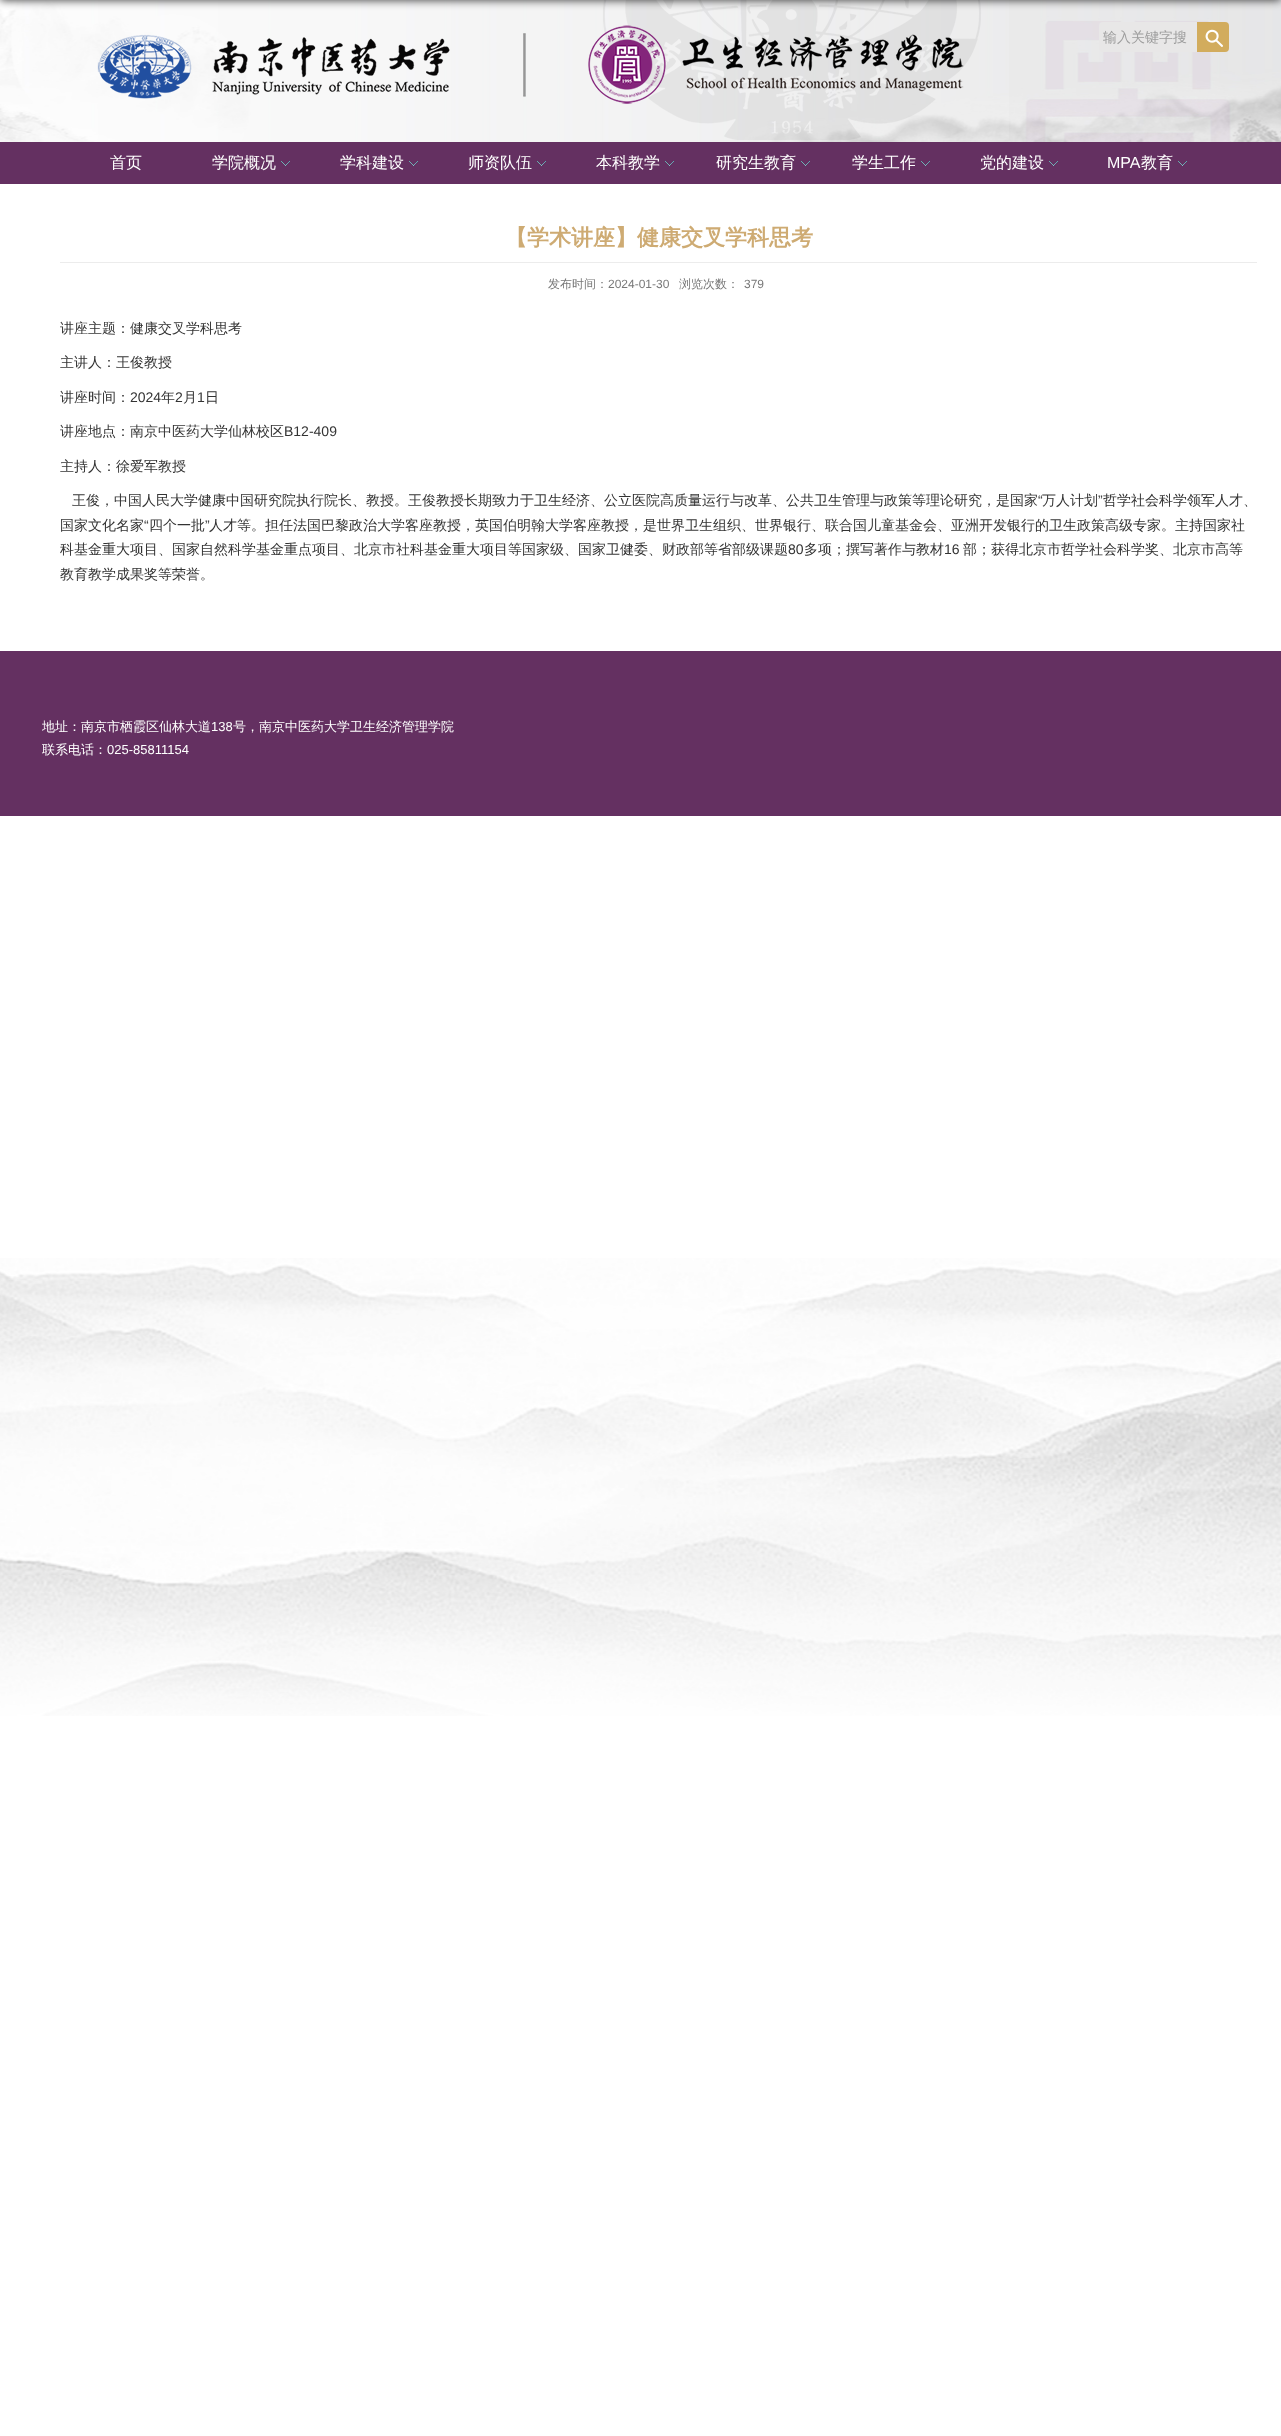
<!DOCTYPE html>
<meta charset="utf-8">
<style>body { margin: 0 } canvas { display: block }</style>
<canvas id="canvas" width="1281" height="2436"></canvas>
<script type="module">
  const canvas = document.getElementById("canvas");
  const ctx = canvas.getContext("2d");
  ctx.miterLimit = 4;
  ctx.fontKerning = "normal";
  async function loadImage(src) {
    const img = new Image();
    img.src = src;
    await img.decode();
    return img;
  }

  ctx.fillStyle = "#ffffff";
  ctx.fillRect(0, 0, 1281, 2436);
  ctx.drawImage(await loadImage("img1.png"), 0, 1258, 1281, 458);
  ctx.drawImage(await loadImage("img2.png"), 0, 0, 1281, 142);
  ctx.drawImage(await loadImage("img3.png"), 603, 0, 406, 140);
  ctx.fillStyle = "rgba(0, 0, 0, 0.8)";
  ctx.filter = "blur(5px)";
  ctx.beginPath();
  ctx.rect(0, -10, 1281, 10);
  ctx.fill();
  ctx.filter = "none";
  ctx.drawImage(await loadImage("img4.png"), 97, 25, 867, 79);
  ctx.fillStyle = "#e8e7e7";
  ctx.beginPath();
  ctx.roundRect(1099, 22, 130, 30, 4);
  ctx.fill();
  ctx.font = "500 14px WenQuanYi Zen Hei";
  ctx.fillStyle = "#9d9d9d";
  ctx.fillText("输入关键字搜", 1103, 42);
  ctx.fillStyle = "#d2ac5d";
  ctx.beginPath();
  ctx.roundRect(1197, 22, 32, 30, [0, 4, 4, 0]);
  ctx.fill();
  ctx.drawImage(await loadImage("img5.png"), 1205, 29, 18, 18);
  ctx.fillStyle = "#643061";
  ctx.fillRect(0, 142, 1281, 42);
  ctx.font = "500 16px WenQuanYi Zen Hei";
  ctx.fillStyle = "#ffffff";
  ctx.fillText("首页", 110, 168);
  ctx.fillText("学院概况", 212, 168);
  ctx.drawImage(await loadImage("img6.png"), 281, 161, 9, 5);
  ctx.fillText("学科建设", 340, 168);
  ctx.drawImage(await loadImage("img6.png"), 409, 161, 9, 5);
  ctx.fillText("师资队伍", 468, 168);
  ctx.drawImage(await loadImage("img6.png"), 537, 161, 9, 5);
  ctx.fillText("本科教学", 596, 168);
  ctx.drawImage(await loadImage("img6.png"), 665, 161, 9, 5);
  ctx.fillText("研究生教育", 716, 168);
  ctx.drawImage(await loadImage("img6.png"), 801, 161, 9, 5);
  ctx.fillText("学生工作", 852, 168);
  ctx.drawImage(await loadImage("img6.png"), 921, 161, 9, 5);
  ctx.fillText("党的建设", 980, 168);
  ctx.drawImage(await loadImage("img6.png"), 1049, 161, 9, 5);
  ctx.font = "16px Liberation Sans";
  ctx.fillText("MPA", 1107, 168);
  ctx.font = "500 16px WenQuanYi Zen Hei";
  ctx.fillText("教育", 1141, 168);
  ctx.drawImage(await loadImage("img6.png"), 1178, 161, 9, 5);
  ctx.font = "bold 22px WenQuanYi Zen Hei";
  ctx.fillStyle = "#ceab73";
  ctx.fillText("【学术讲座】健康交叉学科思考", 505, 245);
  ctx.fillStyle = "#ececec";
  ctx.fillRect(60, 262, 1197, 1);
  ctx.font = "500 12px WenQuanYi Zen Hei";
  ctx.fillStyle = "#787878";
  ctx.fillText("发布时间：", 548, 288);
  ctx.font = "12px Liberation Sans";
  ctx.fillText("2024-01-30", 608, 288);
  ctx.font = "500 12px WenQuanYi Zen Hei";
  ctx.fillText("浏览次数：", 679, 288);
  ctx.font = "12px Liberation Sans";
  ctx.fillText("379", 744, 288);
  ctx.font = "500 14px WenQuanYi Zen Hei";
  ctx.fillStyle = "#333333";
  ctx.fillText("讲座主题：健康交叉学科思考", 60, 333);
  ctx.fillText("主讲人：王俊教授", 60, 367);
  ctx.fillText("讲座时间：", 60, 402);
  ctx.font = "14px Liberation Sans";
  ctx.fillText("2024", 130, 402);
  ctx.font = "500 14px WenQuanYi Zen Hei";
  ctx.fillText("年", 161, 402);
  ctx.font = "14px Liberation Sans";
  ctx.fillText("2", 175, 402);
  ctx.font = "500 14px WenQuanYi Zen Hei";
  ctx.fillText("月", 183, 402);
  ctx.font = "14px Liberation Sans";
  ctx.fillText("1", 197, 402);
  ctx.font = "500 14px WenQuanYi Zen Hei";
  ctx.fillText("日", 205, 402);
  ctx.fillText("讲座地点：南京中医药大学仙林校区", 60, 436);
  ctx.font = "14px Liberation Sans";
  ctx.fillText("B12-409", 284, 436);
  ctx.font = "500 14px WenQuanYi Zen Hei";
  ctx.fillText("主持人：徐爱军教授", 60, 471);
  ctx.fillText("王俊，中国人民大学健康中国研究院执行院长、教授。王俊教授长期致力于卫生经济、公立医院高质量运行与改革、公共卫生管理与政策等理论研究，是国家", 72, 505);
  ctx.font = "14px Liberation Sans";
  ctx.fillText("“", 1038, 505);
  ctx.font = "500 14px WenQuanYi Zen Hei";
  ctx.fillText("万人计划", 1042, 505);
  ctx.font = "14px Liberation Sans";
  ctx.fillText("”", 1098, 505);
  ctx.font = "500 14px WenQuanYi Zen Hei";
  ctx.fillText("哲学社会科学领军人才、", 1103, 505);
  ctx.fillText("国家文化名家", 60, 530);
  ctx.font = "14px Liberation Sans";
  ctx.fillText("“", 144, 530);
  ctx.font = "500 14px WenQuanYi Zen Hei";
  ctx.fillText("四个一批", 149, 530);
  ctx.font = "14px Liberation Sans";
  ctx.fillText("”", 205, 530);
  ctx.font = "500 14px WenQuanYi Zen Hei";
  ctx.fillText("人才等。担任法国巴黎政治大学客座教授，英国伯明翰大学客座教授，是世界卫生组织、世界银行、联合国儿童基金会、亚洲开发银行的卫生政策高级专家。主持国家社", 209, 530);
  ctx.fillText("科基金重大项目、国家自然科学基金重点项目、北京市社科基金重大项目等国家级、国家卫健委、财政部等省部级课题", 60, 554);
  ctx.font = "14px Liberation Sans";
  ctx.fillText("80", 788, 554);
  ctx.font = "500 14px WenQuanYi Zen Hei";
  ctx.fillText("多项；撰写著作与教材", 804, 554);
  ctx.font = "14px Liberation Sans";
  ctx.fillText("16", 944, 554);
  ctx.font = "500 14px WenQuanYi Zen Hei";
  ctx.fillText("部；获得北京市哲学社会科学奖、北京市高等", 963, 554);
  ctx.fillText("教育教学成果奖等荣誉。", 60, 579);
  ctx.fillStyle = "#643061";
  ctx.fillRect(0, 651, 1281, 165);
  ctx.font = "500 13px WenQuanYi Zen Hei";
  ctx.fillStyle = "#ffffff";
  ctx.fillText("地址：南京市栖霞区仙林大道", 42, 731);
  ctx.font = "13px Liberation Sans";
  ctx.fillText("138", 211, 731);
  ctx.font = "500 13px WenQuanYi Zen Hei";
  ctx.fillText("号，南京中医药大学卫生经济管理学院", 233, 731);
  ctx.fillText("联系电话：", 42, 754);
  ctx.font = "13px Liberation Sans";
  ctx.fillText("025-85811154", 107, 754);
</script>
